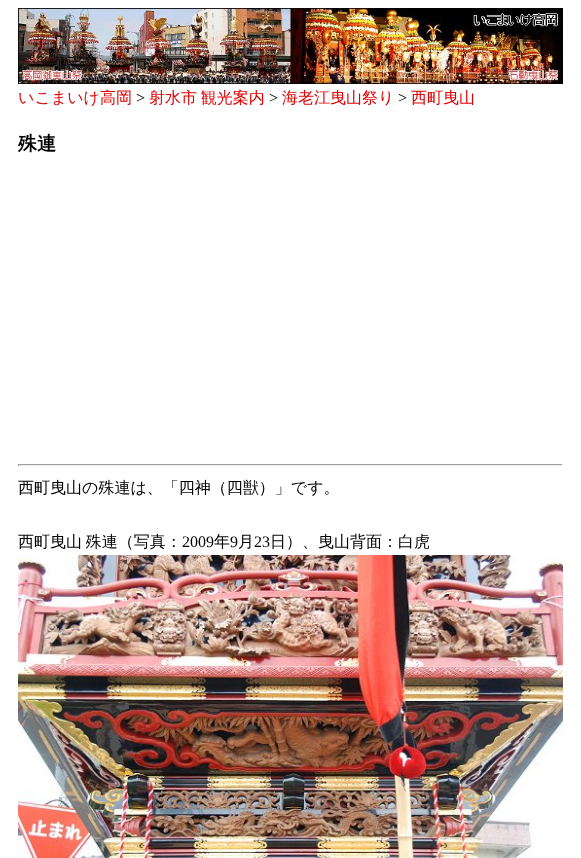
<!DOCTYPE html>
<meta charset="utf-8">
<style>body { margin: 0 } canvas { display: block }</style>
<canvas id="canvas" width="581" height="858"></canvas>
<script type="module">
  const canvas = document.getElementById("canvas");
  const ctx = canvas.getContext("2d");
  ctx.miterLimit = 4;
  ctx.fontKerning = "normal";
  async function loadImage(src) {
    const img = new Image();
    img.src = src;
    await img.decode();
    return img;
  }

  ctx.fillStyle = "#ffffff";
  ctx.fillRect(0, 0, 581, 858);
  ctx.drawImage(await loadImage("img1.png"), 18, 8, 545, 76);
  ctx.font = "500 16px WenQuanYi Zen Hei";
  ctx.fillStyle = "#e00000";
  ctx.fillText("いこまいけ高岡", 18, 103);
  ctx.font = "16px Liberation Serif";
  ctx.fillStyle = "#000000";
  ctx.fillText(">", 136, 103);
  ctx.wordSpacing = "-1px";
  ctx.font = "500 16px WenQuanYi Zen Hei";
  ctx.fillStyle = "#e00000";
  ctx.fillText("射水市 観光案内", 149, 103);
  ctx.wordSpacing = "0px";
  ctx.font = "16px Liberation Serif";
  ctx.fillStyle = "#000000";
  ctx.fillText(">", 269, 103);
  ctx.font = "500 16px WenQuanYi Zen Hei";
  ctx.fillStyle = "#e00000";
  ctx.fillText("海老江曳山祭り", 282, 103);
  ctx.font = "16px Liberation Serif";
  ctx.fillStyle = "#000000";
  ctx.fillText(">", 398, 103);
  ctx.font = "500 16px WenQuanYi Zen Hei";
  ctx.fillStyle = "#e00000";
  ctx.fillText("西町曳山", 411, 103);
  ctx.font = "bold 19px WenQuanYi Zen Hei";
  ctx.fillStyle = "#000000";
  ctx.fillText("殊連", 18, 150);
  ctx.fillStyle = "#9f9f9f";
  ctx.fillRect(18, 464, 545, 1);
  ctx.fillStyle = "#eeeeee";
  ctx.fillRect(562, 464, 1, 2);
  ctx.fillRect(18, 465, 545, 1);
  ctx.fillStyle = "#9f9f9f";
  ctx.fillRect(18, 464, 1, 2);
  ctx.font = "500 16px WenQuanYi Zen Hei";
  ctx.fillStyle = "#000000";
  ctx.fillText("西町曳山の殊連は、「四神（四獣）」です。", 18, 493);
  ctx.wordSpacing = "-1px";
  ctx.fillText("西町曳山 殊連（写真：", 18, 547);
  ctx.wordSpacing = "0px";
  ctx.font = "16px Liberation Serif";
  ctx.fillText("2009", 182, 547);
  ctx.font = "500 16px WenQuanYi Zen Hei";
  ctx.fillText("年", 214, 547);
  ctx.font = "16px Liberation Serif";
  ctx.fillText("9", 230, 547);
  ctx.font = "500 16px WenQuanYi Zen Hei";
  ctx.fillText("月", 238, 547);
  ctx.font = "16px Liberation Serif";
  ctx.fillText("23", 254, 547);
  ctx.font = "500 16px WenQuanYi Zen Hei";
  ctx.fillText("日）、曳山背面：白虎", 270, 547);
  ctx.drawImage(await loadImage("img2.png"), 18, 555, 545, 303);
</script>
